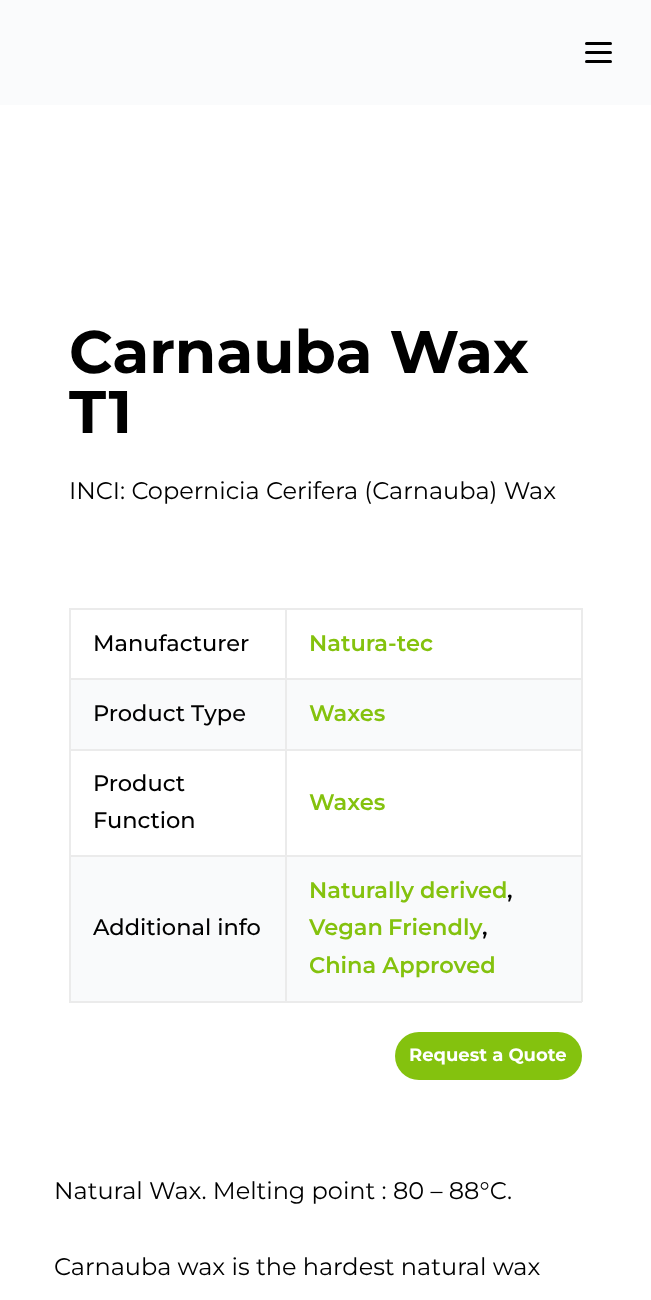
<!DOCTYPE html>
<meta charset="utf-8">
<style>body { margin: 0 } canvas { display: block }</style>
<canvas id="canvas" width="651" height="1300"></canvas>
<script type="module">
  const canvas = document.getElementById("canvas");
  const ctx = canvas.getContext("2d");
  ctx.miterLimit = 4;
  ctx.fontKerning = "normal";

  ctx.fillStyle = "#fafbfc";
  ctx.fillRect(0, 0, 651, 1300);
  ctx.fillStyle = "#000000";
  ctx.beginPath();
  ctx.roundRect(585, 42, 27, 3, 1.5);
  ctx.fill();
  ctx.beginPath();
  ctx.roundRect(585, 51, 27, 3, 1.5);
  ctx.fill();
  ctx.beginPath();
  ctx.roundRect(585, 60, 27, 3, 1.5);
  ctx.fill();
  ctx.fillStyle = "#ffffff";
  ctx.fillRect(0, 105, 651, 1195);
  ctx.font = "bold 60px Montserrat";
  ctx.fillStyle = "#000000";
  ctx.fillText("Carnauba Wax", 69, 373);
  ctx.fillText("T1", 69, 433);
  ctx.font = "24px Montserrat";
  ctx.fillText("INCI: Copernicia Cerifera (Carnauba) Wax", 69, 499);
  ctx.fillStyle = "#ebebeb";
  ctx.fillRect(69, 608, 513, 2);
  ctx.fillRect(581, 608, 2, 394);
  ctx.fillRect(69, 1001, 513, 2);
  ctx.fillRect(69, 608, 2, 394);
  ctx.font = "500 22.5px Montserrat";
  ctx.fillStyle = "#000000";
  ctx.fillText("Manufacturer", 93, 651);
  ctx.fillStyle = "#ebebeb";
  ctx.fillRect(285, 678, 297, 2);
  ctx.fillRect(285, 749, 297, 2);
  ctx.fillRect(285, 855, 297, 2);
  ctx.fillRect(285, 855, 2, 147);
  ctx.fillRect(69, 855, 218, 2);
  ctx.fillRect(285, 749, 2, 108);
  ctx.fillRect(69, 749, 218, 2);
  ctx.fillRect(285, 678, 2, 72);
  ctx.fillRect(69, 678, 218, 2);
  ctx.fillRect(285, 608, 2, 72);
  ctx.font = "600 22.5px Montserrat";
  ctx.fillStyle = "#84c20e";
  ctx.fillText("Natura-tec", 309, 651);
  ctx.fillStyle = "#f9fafb";
  ctx.fillRect(71, 680, 214, 69);
  ctx.font = "500 22.5px Montserrat";
  ctx.fillStyle = "#000000";
  ctx.fillText("Product Type", 93, 721);
  ctx.fillStyle = "#f9fafb";
  ctx.fillRect(287, 680, 294, 69);
  ctx.font = "600 22.5px Montserrat";
  ctx.fillStyle = "#84c20e";
  ctx.fillText("Waxes", 309, 721);
  ctx.font = "500 22.5px Montserrat";
  ctx.fillStyle = "#000000";
  ctx.fillText("Product", 93, 791);
  ctx.fillText("Function", 93, 828);
  ctx.font = "600 22.5px Montserrat";
  ctx.fillStyle = "#84c20e";
  ctx.fillText("Waxes", 309, 810);
  ctx.fillStyle = "#f9fafb";
  ctx.fillRect(71, 857, 214, 144);
  ctx.font = "500 22.5px Montserrat";
  ctx.fillStyle = "#000000";
  ctx.fillText("Additional info", 93, 935);
  ctx.fillStyle = "#f9fafb";
  ctx.fillRect(287, 857, 294, 144);
  ctx.font = "600 22.5px Montserrat";
  ctx.fillStyle = "#84c20e";
  ctx.fillText("Naturally derived", 309, 898);
  ctx.fillStyle = "#000000";
  ctx.fillText(",", 507, 898);
  ctx.wordSpacing = "-1px";
  ctx.fillStyle = "#84c20e";
  ctx.fillText("Vegan Friendly", 309, 935);
  ctx.wordSpacing = "0px";
  ctx.fillStyle = "#000000";
  ctx.fillText(",", 482, 935);
  ctx.fillStyle = "#84c20e";
  ctx.fillText("China Approved", 309, 973);
  ctx.beginPath();
  ctx.roundRect(395, 1032, 187, 48, 24);
  ctx.fill();
  ctx.font = "bold 18px Montserrat";
  ctx.fillStyle = "#ffffff";
  ctx.fillText("Request a Quote", 409, 1061);
  ctx.font = "24px Montserrat";
  ctx.fillStyle = "#000000";
  ctx.fillText("Natural Wax. Melting point : 80 – 88°C.", 54, 1199);
  ctx.fillText("Carnauba wax is the hardest natural wax", 54, 1275);
</script>
